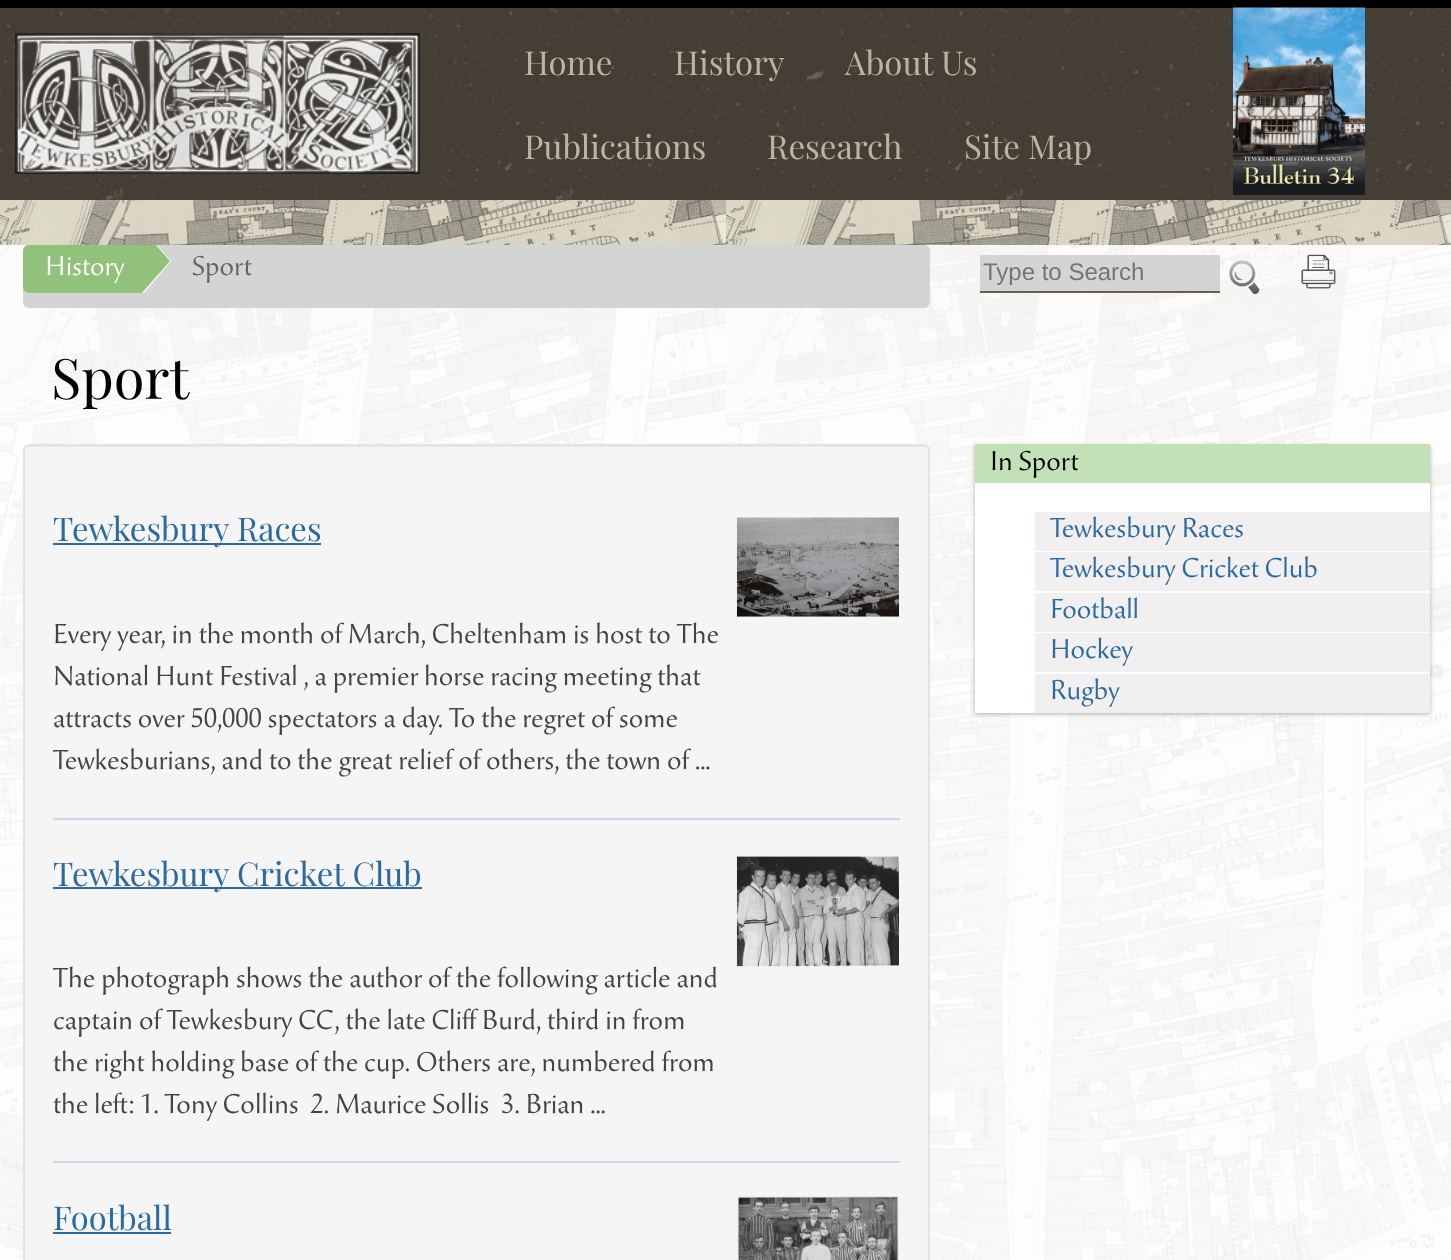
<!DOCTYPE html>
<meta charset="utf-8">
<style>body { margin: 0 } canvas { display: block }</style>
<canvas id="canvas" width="1451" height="1260"></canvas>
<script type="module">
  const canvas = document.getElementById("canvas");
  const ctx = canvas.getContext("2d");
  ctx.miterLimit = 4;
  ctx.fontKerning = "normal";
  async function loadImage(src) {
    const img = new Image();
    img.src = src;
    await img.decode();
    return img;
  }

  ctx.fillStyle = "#ffffff";
  ctx.fillRect(0, 0, 1451, 1260);
  ctx.drawImage(await loadImage("img1.png"), 0, 200, 1451, 1060);
  ctx.fillStyle = "#443e35";
  ctx.fillRect(0, 8, 1451, 192);
  ctx.drawImage(await loadImage("img2.png"), 0, 8, 1451, 192);
  ctx.fillStyle = "#000000";
  ctx.fillRect(0, 0, 1451, 8);
  ctx.drawImage(await loadImage("img3.png"), 15, 33, 405, 141);
  ctx.font = "33px Playfair Display";
  ctx.fillStyle = "#bdb49f";
  ctx.fillText("Home", 524, 75);
  ctx.fillText("History", 674, 75);
  ctx.fillText("About Us", 845, 75);
  ctx.drawImage(await loadImage("img4.png"), 1233, 7, 132, 188);
  ctx.fillText("Publications", 524, 159);
  ctx.fillText("Research", 767, 159);
  ctx.fillText("Site Map", 964, 159);
  ctx.fillStyle = "rgba(255, 255, 255, 0.9)";
  ctx.fillRect(0, 245, 1451, 1015);
  ctx.fillStyle = "#d4d4d4";
  ctx.beginPath();
  ctx.roundRect(23, 245, 907, 63, 6);
  ctx.fill();
  ctx.beginPath();
  ctx.roundRect(23, 245, 907, 48, 6);
  ctx.fill();
  ctx.fillStyle = "#91c17b";
  ctx.beginPath();
  ctx.roundRect(23, 245, 102, 48, [6, 0, 0, 6]);
  ctx.fill();
  ctx.font = "28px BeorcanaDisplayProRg";
  ctx.fillStyle = "#ffffff";
  ctx.fillText("History", 45, 275);
  ctx.beginPath();
  ctx.moveTo(157, 245);
  ctx.lineTo(171, 261);
  ctx.lineTo(144, 293);
  ctx.lineTo(126, 293);
  ctx.lineTo(126, 245);
  ctx.closePath();
  ctx.fill();
  ctx.fillStyle = "#91c17b";
  ctx.beginPath();
  ctx.moveTo(156, 245);
  ctx.lineTo(170, 261);
  ctx.lineTo(142, 293);
  ctx.lineTo(124, 293);
  ctx.lineTo(124, 245);
  ctx.closePath();
  ctx.fill();
  ctx.fillStyle = "#646464";
  ctx.fillText("Sport", 192, 275);
  ctx.fillStyle = "#d4d4d4";
  ctx.fillRect(980, 255, 240, 36);
  ctx.fillStyle = "#696047";
  ctx.fillRect(980, 291, 240, 2);
  ctx.font = "24px Liberation Sans";
  ctx.fillStyle = "#757575";
  ctx.fillText("Type to Search", 983, 280);
  ctx.drawImage(await loadImage("img5.png"), 1229, 260, 31, 35);
  ctx.drawImage(await loadImage("img6.png"), 1301, 254, 35, 35);
  ctx.font = "56px Playfair Display";
  ctx.fillStyle = "#000000";
  ctx.fillText("Sport", 51, 399);
  ctx.fillStyle = "#f5f5f5";
  ctx.beginPath();
  ctx.roundRect(23, 444, 907, 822, 6);
  ctx.fill();
  ctx.fillStyle = "#e9e9e9";
  ctx.beginPath();
  ctx.moveTo(28, 447);
  ctx.lineTo(924, 447);
  ctx.bezierCurveTo(926, 447, 928, 449, 928, 452);
  ctx.lineTo(928, 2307);
  ctx.bezierCurveTo(929, 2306, 929, 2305, 929, 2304);
  ctx.lineTo(929, 451);
  ctx.bezierCurveTo(929, 448, 927, 446, 924, 446);
  ctx.lineTo(29, 446);
  ctx.bezierCurveTo(26, 446, 24, 448, 24, 451);
  ctx.lineTo(24, 452);
  ctx.bezierCurveTo(24, 449, 26, 447, 28, 447);
  ctx.closePath();
  ctx.fill();
  ctx.beginPath();
  ctx.roundRect(24, 445, 905, 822, 5);
  ctx.strokeStyle = "#e3e3e3";
  ctx.lineWidth = 2;
  ctx.stroke();
  ctx.fillStyle = "#c7d9eb";
  ctx.fillRect(53, 818, 847, 2);
  ctx.fillStyle = "#2d6b9f";
  ctx.fillRect(53, 543, 268, 2);
  ctx.font = "32.75px Playfair Display";
  ctx.fillText("Tewkesbury Races", 53, 541);
  ctx.font = "28px BeorcanaDisplayProRg";
  ctx.fillStyle = "#444444";
  ctx.fillText("Every year, in the month of March, Cheltenham is host to The", 53, 643);
  ctx.fillText("National Hunt Festival , a premier horse racing meeting that", 53, 685);
  ctx.fillText("attracts over 50,000 spectators a day. To the regret of some", 53, 727);
  ctx.fillText("Tewkesburians, and to the great relief of others, the town of ...", 53, 769);
  ctx.drawImage(await loadImage("img7.png"), 736, 517, 163, 100);
  ctx.fillStyle = "#c7d9eb";
  ctx.fillRect(53, 1161, 847, 2);
  ctx.fillStyle = "#2d6b9f";
  ctx.fillRect(53, 887, 369, 2);
  ctx.font = "32.75px Playfair Display";
  ctx.fillText("Tewkesbury Cricket Club", 53, 886);
  ctx.font = "28px BeorcanaDisplayProRg";
  ctx.fillStyle = "#444444";
  ctx.fillText("The photograph shows the author of the following article and", 53, 987);
  ctx.fillText("captain of Tewkesbury CC, the late Cliff Burd, third in from", 53, 1029);
  ctx.fillText("the right holding base of the cup. Others are, numbered from", 53, 1071);
  ctx.fillText("the left: 1. Tony Collins  2. Maurice Sollis  3. Brian ...", 53, 1113);
  ctx.drawImage(await loadImage("img8.png"), 736, 856, 163, 111);
  ctx.font = "32.75px Playfair Display";
  ctx.fillStyle = "#2d6b9f";
  ctx.fillText("Football", 53, 1230);
  ctx.fillRect(53, 1232, 118, 2);
  ctx.drawImage(await loadImage("img9.png"), 737, 1196, 162, 64);
  ctx.fillStyle = "rgba(0, 0, 0, 0.3)";
  ctx.filter = "blur(2px)";
  ctx.beginPath();
  ctx.rect(975, 446, 455, 268);
  ctx.fill();
  ctx.filter = "none";
  ctx.fillStyle = "#ffffff";
  ctx.fillRect(975, 483, 455, 230);
  ctx.fillStyle = "#c3e1b6";
  ctx.fillRect(975, 444, 455, 39);
  ctx.font = "28px BeorcanaDisplayProRg";
  ctx.fillStyle = "#000000";
  ctx.fillText("In Sport", 990, 470);
  ctx.fillStyle = "#f1efef";
  ctx.fillRect(1035, 512, 395, 39);
  ctx.fillStyle = "#2d6b9f";
  ctx.fillText("Tewkesbury Races", 1050, 537);
  ctx.fillStyle = "#f1efef";
  ctx.fillRect(1035, 552, 395, 39);
  ctx.fillStyle = "#2d6b9f";
  ctx.fillText("Tewkesbury Cricket Club", 1050, 577);
  ctx.fillStyle = "#f1efef";
  ctx.fillRect(1035, 593, 395, 39);
  ctx.fillStyle = "#2d6b9f";
  ctx.fillText("Football", 1050, 618);
  ctx.fillStyle = "#f1efef";
  ctx.fillRect(1035, 633, 395, 39);
  ctx.fillStyle = "#2d6b9f";
  ctx.fillText("Hockey", 1050, 658);
  ctx.fillStyle = "#f1efef";
  ctx.fillRect(1035, 674, 395, 39);
  ctx.fillStyle = "#2d6b9f";
  ctx.fillText("Rugby", 1050, 699);
</script>
